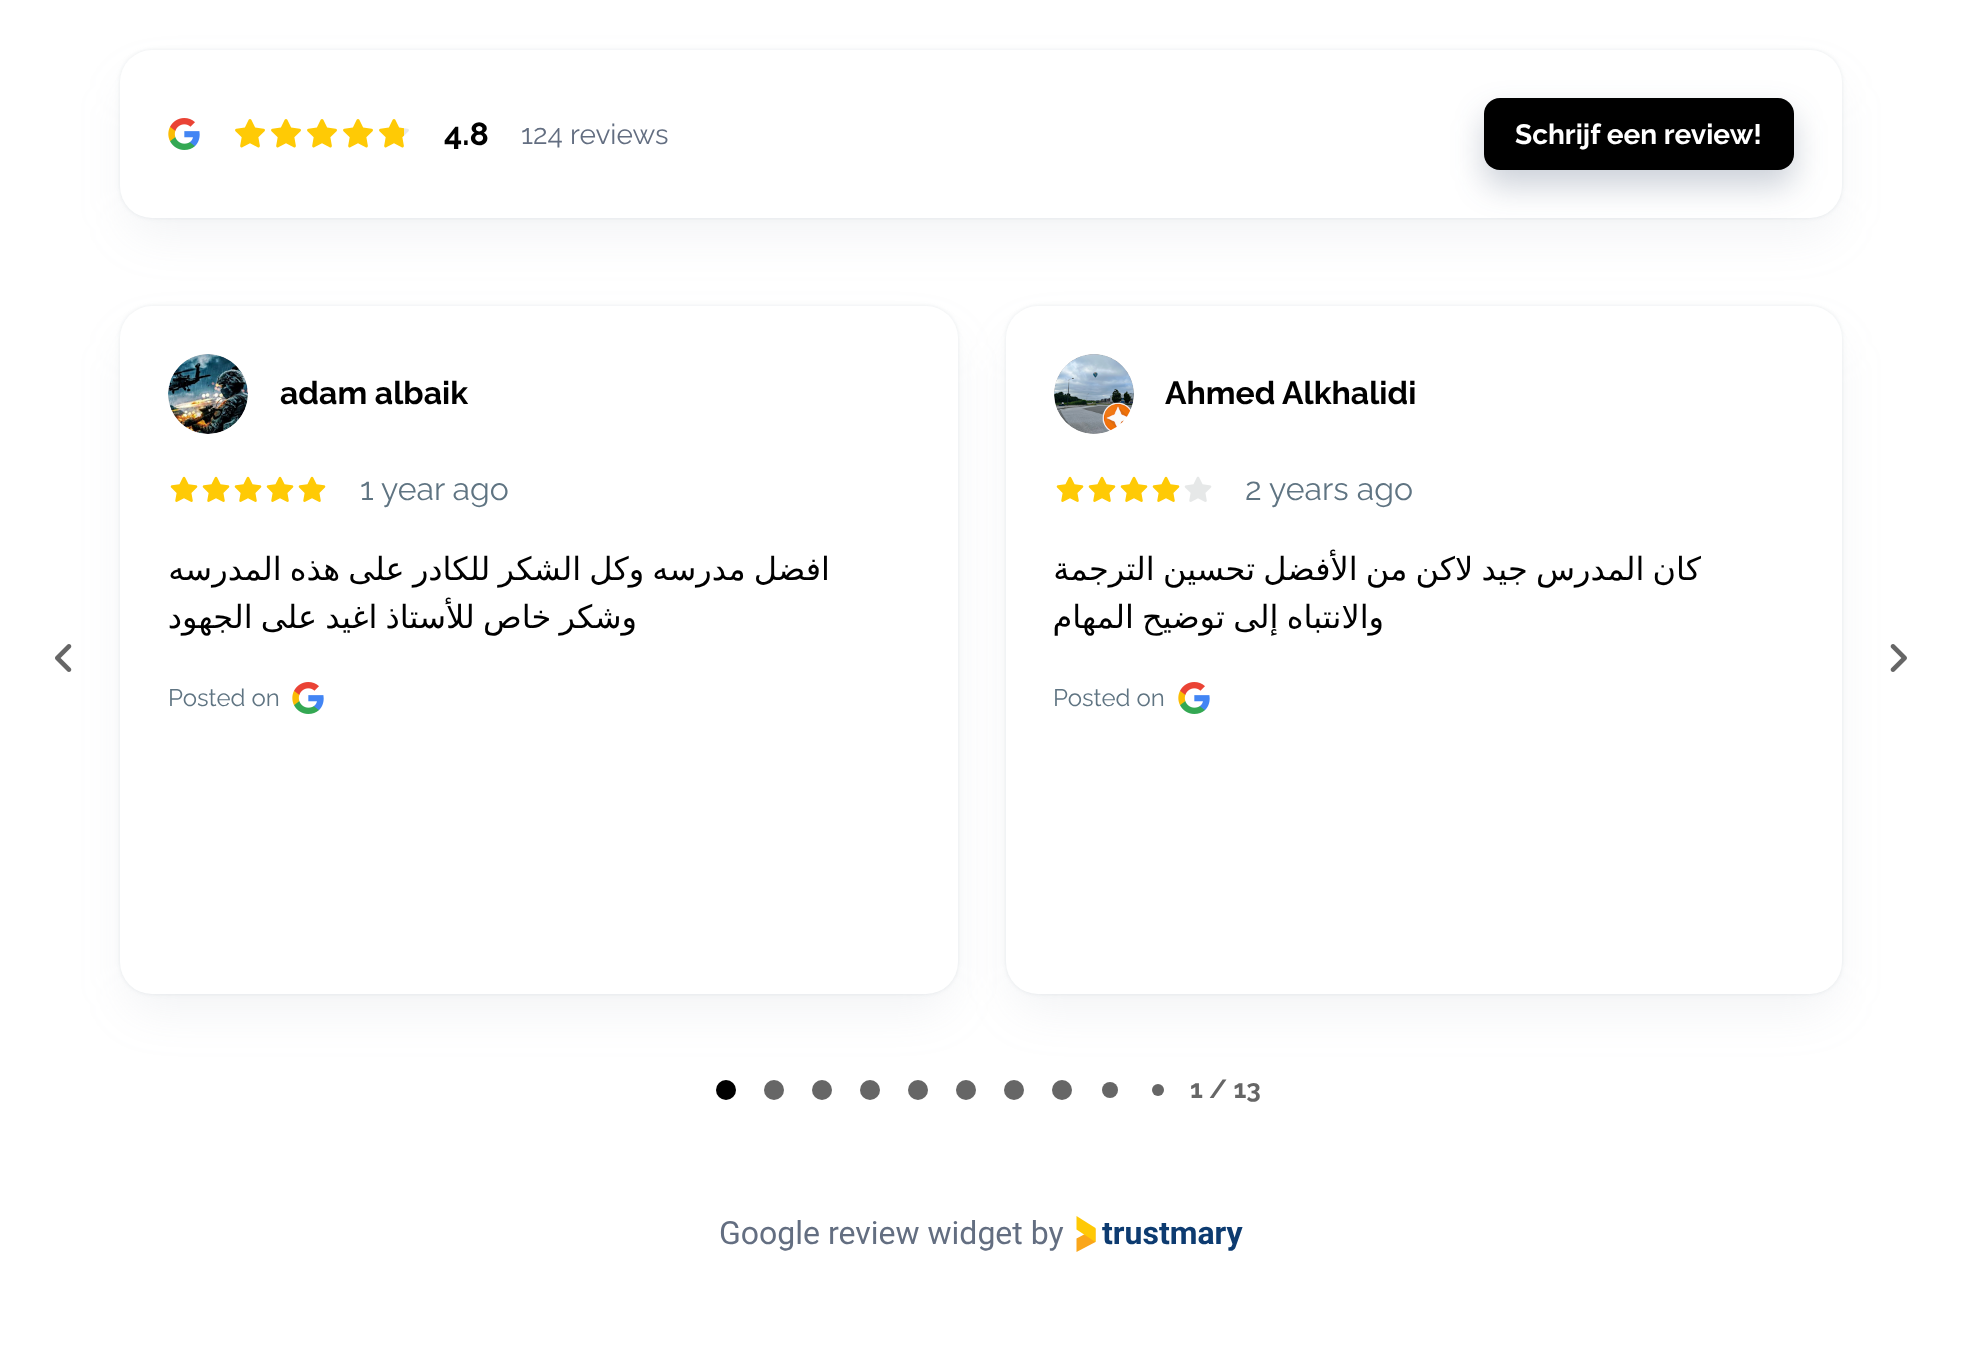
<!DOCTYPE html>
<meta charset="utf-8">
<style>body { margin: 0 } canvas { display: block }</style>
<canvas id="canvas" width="1962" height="1353"></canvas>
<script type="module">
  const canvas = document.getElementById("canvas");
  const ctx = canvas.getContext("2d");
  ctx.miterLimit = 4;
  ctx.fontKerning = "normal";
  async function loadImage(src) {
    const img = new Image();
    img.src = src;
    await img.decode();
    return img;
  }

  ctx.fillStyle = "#ffffff";
  ctx.fillRect(0, 0, 1962, 1353);
  ctx.fillStyle = "rgba(145, 158, 171, 0.2)";
  ctx.filter = "blur(2px)";
  ctx.beginPath();
  ctx.roundRect(120, 50, 1722, 168, 32);
  ctx.fill();
  ctx.filter = "none";
  ctx.fillStyle = "rgba(145, 158, 171, 0.12)";
  ctx.filter = "blur(24px)";
  ctx.beginPath();
  ctx.roundRect(128, 82, 1706, 152, 24);
  ctx.fill();
  ctx.filter = "none";
  ctx.fillStyle = "#ffffff";
  ctx.beginPath();
  ctx.roundRect(120, 50, 1722, 168, 32);
  ctx.fill();
  ctx.fillStyle = "rgba(42, 62, 95, 0.24)";
  ctx.filter = "blur(16px)";
  ctx.beginPath();
  ctx.roundRect(1484, 114, 310, 72, 16);
  ctx.fill();
  ctx.filter = "none";
  ctx.fillStyle = "#000000";
  ctx.beginPath();
  ctx.roundRect(1484, 98, 310, 72, 16);
  ctx.fill();
  ctx.font = "bold 28px Raleway";
  ctx.fillStyle = "#ffffff";
  ctx.fillText("Schrijf een review!", 1515, 144);
  ctx.font = "28px Raleway";
  ctx.fillStyle = "#636e81";
  ctx.fillText("124 reviews", 521, 144);
  ctx.font = "bold 32px Raleway";
  ctx.fillStyle = "#000000";
  ctx.fillText("4.8", 444, 145);
  ctx.drawImage(await loadImage("img1.png"), 404, 128, 5, 8);
  ctx.drawImage(await loadImage("img2.png"), 235, 119, 169, 29);
  ctx.drawImage(await loadImage("img3.png"), 168, 118, 32, 32);
  ctx.fillStyle = "rgba(145, 158, 171, 0.2)";
  ctx.filter = "blur(2px)";
  ctx.beginPath();
  ctx.roundRect(120, 306, 838, 688, 32);
  ctx.fill();
  ctx.filter = "none";
  ctx.fillStyle = "rgba(145, 158, 171, 0.12)";
  ctx.filter = "blur(24px)";
  ctx.beginPath();
  ctx.roundRect(128, 338, 822, 672, 24);
  ctx.fill();
  ctx.filter = "none";
  ctx.fillStyle = "#ffffff";
  ctx.beginPath();
  ctx.roundRect(120, 306, 838, 688, 32);
  ctx.fill();
  ctx.fillStyle = "rgba(145, 158, 171, 0.12)";
  ctx.filter = "blur(24px)";
  ctx.beginPath();
  ctx.roundRect(1014, 338, 820, 672, 24);
  ctx.fill();
  ctx.filter = "none";
  ctx.drawImage(await loadImage("img4.png"), 1890, 644, 17, 28);
  ctx.fillStyle = "rgba(145, 158, 171, 0.2)";
  ctx.filter = "blur(2px)";
  ctx.beginPath();
  ctx.roundRect(1006, 306, 836, 688, 32);
  ctx.fill();
  ctx.filter = "none";
  ctx.fillStyle = "#ffffff";
  ctx.beginPath();
  ctx.roundRect(1006, 306, 836, 688, 32);
  ctx.fill();
  ctx.fillStyle = "#000000";
  ctx.fillText("Ahmed Alkhalidi", 1165, 404);
  ctx.drawImage(await loadImage("img5.png"), 1054, 354, 80, 80);
  ctx.font = "32px Raleway";
  ctx.fillStyle = "#5f7482";
  ctx.fillText("2 years ago", 1245, 500);
  ctx.drawImage(await loadImage("img6.png"), 1184, 476, 28, 26);
  ctx.drawImage(await loadImage("img7.png"), 1056, 476, 124, 26);
  ctx.wordSpacing = "-2px";
  ctx.direction = "rtl";
  ctx.font = "32px DejaVu Sans";
  ctx.fillStyle = "#000000";
  ctx.fillText("كان المدرس جيد لاكن من الأفضل تحسين الترجمة", 1701, 580);
  ctx.fillText("والانتباه إلى توضيح المهام", 1384, 628);
  ctx.drawImage(await loadImage("img3.png"), 1178, 682, 32, 32);
  ctx.wordSpacing = "0px";
  ctx.direction = "ltr";
  ctx.font = "24px Raleway";
  ctx.fillStyle = "#5f7482";
  ctx.fillText("Posted on", 1053, 706);
  ctx.font = "bold 32px Raleway";
  ctx.fillStyle = "#000000";
  ctx.fillText("adam albaik", 280, 404);
  ctx.drawImage(await loadImage("img8.png"), 168, 354, 80, 80);
  ctx.font = "32px Raleway";
  ctx.fillStyle = "#5f7482";
  ctx.fillText("1 year ago", 360, 500);
  ctx.drawImage(await loadImage("img9.png"), 170, 476, 156, 26);
  ctx.wordSpacing = "-2px";
  ctx.direction = "rtl";
  ctx.font = "32px DejaVu Sans";
  ctx.fillStyle = "#000000";
  ctx.fillText("افضل مدرسه وكل الشكر للكادر على هذه المدرسه", 830, 580);
  ctx.fillText("وشكر خاص للأستاذ اغيد على الجهود", 637, 628);
  ctx.drawImage(await loadImage("img3.png"), 292, 682, 32, 32);
  ctx.wordSpacing = "0px";
  ctx.direction = "ltr";
  ctx.font = "24px Raleway";
  ctx.fillStyle = "#5f7482";
  ctx.fillText("Posted on", 168, 706);
  ctx.drawImage(await loadImage("img10.png"), 55, 644, 17, 28);
  ctx.font = "bold 26px Raleway";
  ctx.fillStyle = "#666666";
  ctx.fillText("1 / 13", 1190, 1098);
  ctx.beginPath();
  ctx.arc(1158, 1090, 6, 0, Math.PI * 2);
  ctx.fill();
  ctx.beginPath();
  ctx.arc(1110, 1090, 8, 0, Math.PI * 2);
  ctx.fill();
  ctx.beginPath();
  ctx.arc(1062, 1090, 10, 0, Math.PI * 2);
  ctx.fill();
  ctx.beginPath();
  ctx.arc(1014, 1090, 10, 0, Math.PI * 2);
  ctx.fill();
  ctx.beginPath();
  ctx.arc(966, 1090, 10, 0, Math.PI * 2);
  ctx.fill();
  ctx.beginPath();
  ctx.arc(918, 1090, 10, 0, Math.PI * 2);
  ctx.fill();
  ctx.beginPath();
  ctx.arc(870, 1090, 10, 0, Math.PI * 2);
  ctx.fill();
  ctx.beginPath();
  ctx.arc(822, 1090, 10, 0, Math.PI * 2);
  ctx.fill();
  ctx.beginPath();
  ctx.arc(774, 1090, 10, 0, Math.PI * 2);
  ctx.fill();
  ctx.fillStyle = "#000000";
  ctx.beginPath();
  ctx.arc(726, 1090, 10, 0, Math.PI * 2);
  ctx.fill();
  ctx.fillStyle = "#faa61a";
  ctx.beginPath();
  ctx.moveTo(1076.5, 1238.5);
  ctx.lineTo(1076.5, 1252);
  ctx.lineTo(1095.5, 1242);
  ctx.lineTo(1095.5, 1228.5);
  ctx.lineTo(1076.5, 1238.5);
  ctx.fill();
  ctx.fillStyle = "#ffc905";
  ctx.beginPath();
  ctx.moveTo(1076.5, 1229.5);
  ctx.lineTo(1095.5, 1242);
  ctx.lineTo(1095.5, 1228);
  ctx.lineTo(1076.5, 1216);
  ctx.lineTo(1076.5, 1229.5);
  ctx.fill();
  ctx.font = "bold 32px Roboto";
  ctx.fillStyle = "#0d3b70";
  ctx.fillText("trustmary", 1102, 1244);
  ctx.font = "32px Roboto";
  ctx.fillStyle = "#636e81";
  ctx.fillText("Google review widget by", 719, 1244);
</script>
